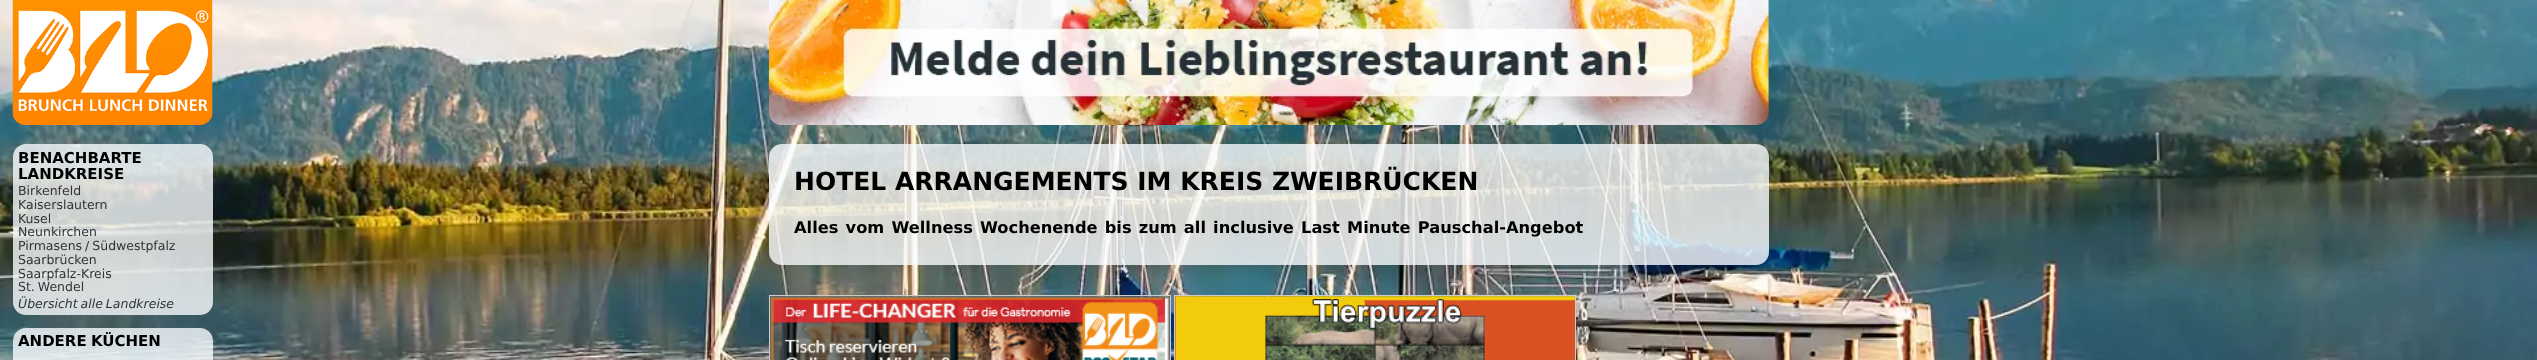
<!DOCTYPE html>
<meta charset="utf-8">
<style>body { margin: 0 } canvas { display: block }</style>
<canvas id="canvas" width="2537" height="360"></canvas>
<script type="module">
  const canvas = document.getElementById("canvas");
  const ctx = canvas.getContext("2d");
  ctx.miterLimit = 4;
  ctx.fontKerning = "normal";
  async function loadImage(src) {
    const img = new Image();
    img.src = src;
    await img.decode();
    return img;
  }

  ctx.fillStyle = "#ffffff";
  ctx.fillRect(0, 0, 2537, 360);
  ctx.drawImage(await loadImage("img1.png"), 0, 0, 2537, 360);
  ctx.drawImage(await loadImage("img2.png"), 12, 0, 201, 125);
  ctx.drawImage(await loadImage("img3.png"), 768, 0, 1001, 125);
  ctx.fillStyle = "rgba(249, 252, 255, 0.8)";
  ctx.beginPath();
  ctx.roundRect(13, 144, 200, 171, 13);
  ctx.fill();
  ctx.font = "bold 15px DejaVu Sans";
  ctx.fillStyle = "#000000";
  ctx.fillText("BENACHBARTE", 18, 163);
  ctx.fillText("LANDKREISE", 18, 179);
  ctx.font = "12.5px DejaVu Sans";
  ctx.fillStyle = "#333333";
  ctx.fillText("Birkenfeld", 18, 195);
  ctx.fillText("Kaiserslautern", 18, 209);
  ctx.fillText("Kusel", 18, 223);
  ctx.fillText("Neunkirchen", 18, 236);
  ctx.wordSpacing = "-1px";
  ctx.fillText("Pirmasens / Südwestpfalz", 18, 250);
  ctx.wordSpacing = "0px";
  ctx.fillText("Saarbrücken", 18, 264);
  ctx.fillText("Saarpfalz-Kreis", 18, 278);
  ctx.wordSpacing = "-1px";
  ctx.fillText("St. Wendel", 18, 291);
  ctx.font = "italic 12.5px DejaVu Sans";
  ctx.fillText("Übersicht alle Landkreise", 18, 308);
  ctx.fillStyle = "rgba(249, 252, 255, 0.8)";
  ctx.beginPath();
  ctx.roundRect(13, 328, 200, 32, [13, 13, 0, 0]);
  ctx.fill();
  ctx.font = "bold 15px DejaVu Sans";
  ctx.fillStyle = "#000000";
  ctx.fillText("ANDERE KÜCHEN", 18, 346);
  ctx.fillStyle = "rgba(249, 252, 255, 0.8)";
  ctx.beginPath();
  ctx.roundRect(769, 144, 1000, 121, 13);
  ctx.fill();
  ctx.wordSpacing = "0px";
  ctx.font = "bold 25px DejaVu Sans";
  ctx.fillStyle = "#000000";
  ctx.fillText("HOTEL ARRANGEMENTS IM KREIS ZWEIBRÜCKEN", 794, 190);
  ctx.wordSpacing = "1.5px";
  ctx.font = "bold 16.25px DejaVu Sans";
  ctx.fillText("Alles vom Wellness Wochenende bis zum all inclusive Last Minute Pauschal-Angebot", 794, 233);
  ctx.strokeStyle = "#cccccc";
  ctx.strokeRect(769.5, 295.5, 401, 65);
  ctx.drawImage(await loadImage("img4.png"), 770, 296, 400, 64);
  ctx.strokeRect(1174.5, 295.5, 401, 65);
  ctx.drawImage(await loadImage("img5.png"), 1175, 296, 400, 64);
</script>
